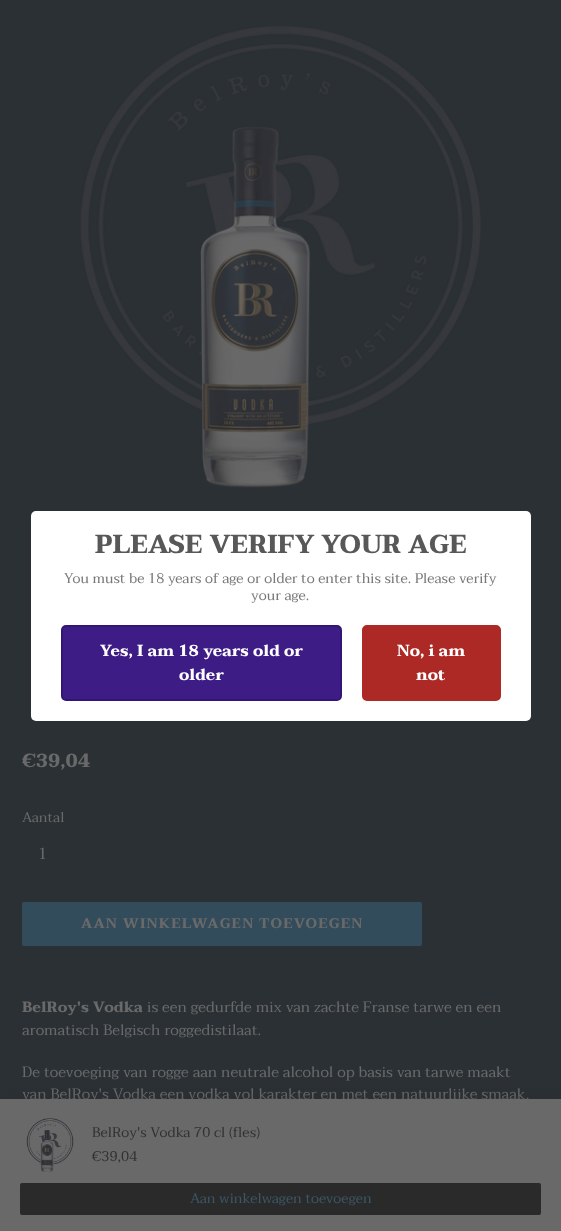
<!DOCTYPE html>
<meta charset="utf-8">
<style>body { margin: 0 } canvas { display: block }</style>
<canvas id="canvas" width="561" height="1231"></canvas>
<script type="module">
  const canvas = document.getElementById("canvas");
  const ctx = canvas.getContext("2d");
  ctx.miterLimit = 4;
  ctx.fontKerning = "normal";
  async function loadImage(src) {
    const img = new Image();
    img.src = src;
    await img.decode();
    return img;
  }

  ctx.fillStyle = "#2b3035";
  ctx.fillRect(0, 0, 561, 1231);
  ctx.fillStyle = "#ffffff";
  ctx.beginPath();
  ctx.roundRect(31, 511, 500, 210, 5);
  ctx.fill();
  ctx.font = "bold 26px Taviraj";
  ctx.fillStyle = "#585858";
  ctx.fillText("PLEASE VERIFY YOUR AGE", 95, 553);
  ctx.font = "14px Taviraj";
  ctx.fillStyle = "#787878";
  ctx.fillText("You must be 18 years of age or older to enter this site. Please verify", 64, 583);
  ctx.fillText("your age.", 251, 600);
  ctx.fillStyle = "#3e1c86";
  ctx.beginPath();
  ctx.roundRect(62, 626, 279, 74, 4);
  ctx.fill();
  ctx.strokeStyle = "#321675";
  ctx.lineWidth = 2;
  ctx.stroke();
  ctx.font = "bold 16px Taviraj";
  ctx.fillStyle = "#ffffff";
  ctx.fillText("Yes, I am 18 years old or", 100, 656);
  ctx.fillText("older", 179, 680);
  ctx.fillStyle = "#ac2925";
  ctx.beginPath();
  ctx.roundRect(363, 626, 137, 74, 4);
  ctx.fill();
  ctx.strokeStyle = "#ac2925";
  ctx.stroke();
  ctx.fillStyle = "#ffffff";
  ctx.fillText("No, i am", 397, 656);
  ctx.fillText("not", 416, 680);
  ctx.drawImage(await loadImage("img1.png"), 80, 25, 401, 463);
  ctx.font = "bold 19px Taviraj";
  ctx.fillStyle = "#696969";
  ctx.fillText("€39,04", 22, 767);
  ctx.font = "14px Taviraj";
  ctx.fillText("Aantal", 22, 822);
  ctx.font = "16px Taviraj";
  ctx.fillText("1", 38, 859);
  ctx.fillStyle = "#324c5c";
  ctx.beginPath();
  ctx.roundRect(22, 902, 400, 44, 2);
  ctx.fill();
  ctx.letterSpacing = "1.1px";
  ctx.font = "bold 14px Taviraj";
  ctx.fillStyle = "#696969";
  ctx.fillText("AAN WINKELWAGEN TOEVOEGEN", 81, 928);
  ctx.letterSpacing = "0px";
  ctx.font = "bold 15px Taviraj";
  ctx.fillText("BelRoy's Vodka", 22, 1012);
  ctx.font = "15px Taviraj";
  ctx.fillText("is een gedurfde mix van zachte Franse tarwe en een", 147, 1012);
  ctx.fillText("aromatisch Belgisch roggedistilaat.", 22, 1035);
  ctx.fillText("De toevoeging van rogge aan neutrale alcohol op basis van tarwe maakt", 22, 1077);
  ctx.fillText("van BelRoy's Vodka een vodka vol karakter en met een natuurlijke smaak.", 22, 1099);
  ctx.fillStyle = "rgba(42, 42, 42, 0.4)";
  ctx.filter = "blur(5px)";
  ctx.beginPath();
  ctx.rect(4, 1099, 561, 132);
  ctx.fill();
  ctx.filter = "none";
  ctx.fillStyle = "#696969";
  ctx.fillRect(0, 1099, 561, 132);
  ctx.drawImage(await loadImage("img2.png"), 26, 1118, 48, 54);
  ctx.font = "14px Taviraj";
  ctx.fillStyle = "#323232";
  ctx.fillText("BelRoy's Vodka 70 cl (fles)", 92, 1137);
  ctx.fillText("€39,04", 92, 1161);
  ctx.fillStyle = "#2a2a2a";
  ctx.beginPath();
  ctx.roundRect(20, 1183, 521, 32, 2);
  ctx.fill();
  ctx.fillStyle = "#3d5665";
  ctx.fillText("Aan winkelwagen toevoegen", 190, 1203);
</script>
